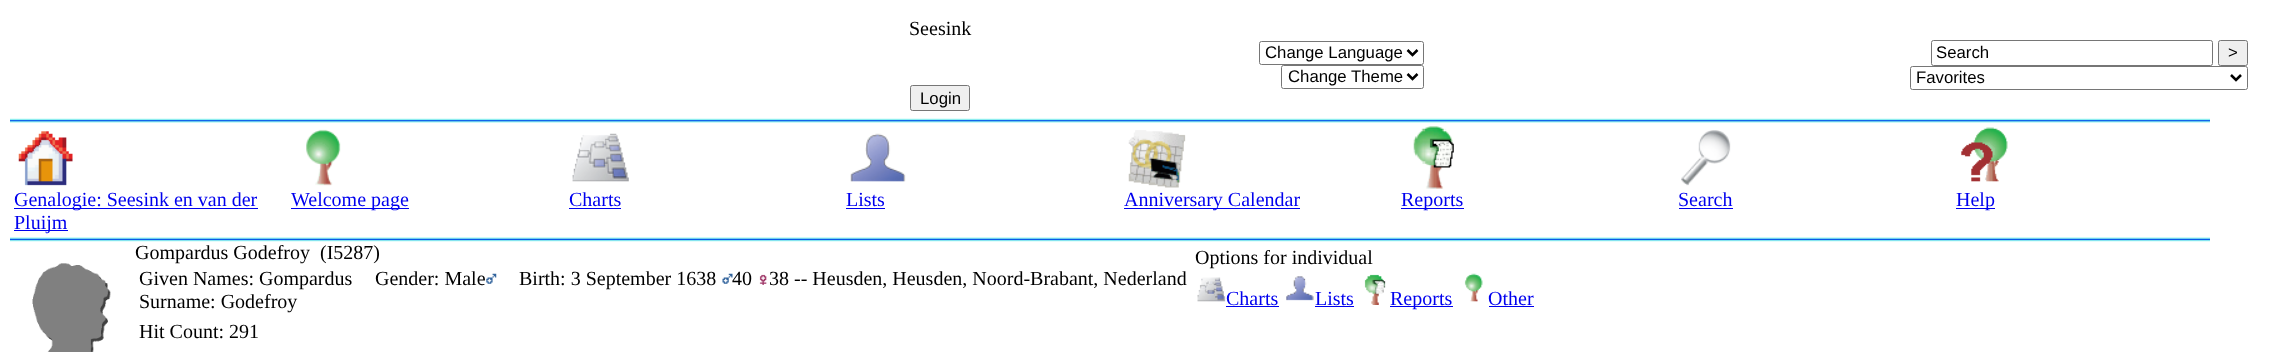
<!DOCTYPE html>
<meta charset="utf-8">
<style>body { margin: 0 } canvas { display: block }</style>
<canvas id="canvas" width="2287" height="352"></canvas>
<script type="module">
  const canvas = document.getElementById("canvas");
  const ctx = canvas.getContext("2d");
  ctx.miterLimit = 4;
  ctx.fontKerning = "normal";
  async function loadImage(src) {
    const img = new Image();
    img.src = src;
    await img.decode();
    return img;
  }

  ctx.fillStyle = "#ffffff";
  ctx.fillRect(0, 0, 2287, 352);
  ctx.font = "20px Liberation Serif";
  ctx.fillStyle = "#000000";
  ctx.fillText("Seesink", 909, 35);
  ctx.fillStyle = "#efefef";
  ctx.beginPath();
  ctx.roundRect(910.5, 85.5, 59, 25, 2);
  ctx.fill();
  ctx.strokeStyle = "#767676";
  ctx.stroke();
  ctx.font = "16.75px Liberation Sans";
  ctx.fillStyle = "#000000";
  ctx.fillText("Login", 920, 104);
  ctx.beginPath();
  ctx.roundRect(1259.5, 41.5, 164, 23, 2);
  ctx.stroke();
  ctx.beginPath();
  ctx.moveTo(1407.5, 50);
  ctx.lineTo(1412.5, 55);
  ctx.lineTo(1417.5, 50);
  ctx.strokeStyle = "#000000";
  ctx.lineWidth = 2.5;
  ctx.stroke();
  ctx.fillText("Change Language", 1265, 58);
  ctx.beginPath();
  ctx.roundRect(1281.5, 65.5, 142, 23, 2);
  ctx.strokeStyle = "#767676";
  ctx.lineWidth = 1;
  ctx.stroke();
  ctx.beginPath();
  ctx.moveTo(1407.5, 74);
  ctx.lineTo(1412.5, 79);
  ctx.lineTo(1417.5, 74);
  ctx.strokeStyle = "#000000";
  ctx.lineWidth = 2.5;
  ctx.stroke();
  ctx.fillText("Change Theme", 1288, 82);
  ctx.beginPath();
  ctx.roundRect(1931.5, 40.5, 281, 25, 2);
  ctx.strokeStyle = "#767676";
  ctx.lineWidth = 1;
  ctx.stroke();
  ctx.fillText("Search", 1936, 58);
  ctx.fillStyle = "#efefef";
  ctx.beginPath();
  ctx.roundRect(2218.5, 40.5, 29, 25, 2);
  ctx.fill();
  ctx.stroke();
  ctx.fillStyle = "#000000";
  ctx.fillText(">", 2228, 58);
  ctx.beginPath();
  ctx.roundRect(1910.5, 66.5, 337, 23, 2);
  ctx.stroke();
  ctx.beginPath();
  ctx.moveTo(2231, 75);
  ctx.lineTo(2236, 80);
  ctx.lineTo(2241, 75);
  ctx.strokeStyle = "#000000";
  ctx.lineWidth = 2.5;
  ctx.stroke();
  ctx.fillText("Favorites", 1916, 83);
  ctx.drawImage(await loadImage("img1.png"), 10, 118, 2200, 5);
  ctx.drawImage(await loadImage("img2.png"), 18, 131, 55, 55);
  ctx.fillStyle = "#0000ee";
  ctx.fillRect(14, 208, 244, 1);
  ctx.font = "20px Liberation Serif";
  ctx.fillText("Genalogie: Seesink en van der", 14, 206);
  ctx.fillRect(14, 230, 54, 1);
  ctx.fillText("Pluijm", 14, 229);
  ctx.drawImage(await loadImage("img3.png"), 306, 129, 35, 57);
  ctx.fillRect(291, 208, 118, 1);
  ctx.fillText("Welcome page", 291, 206);
  ctx.drawImage(await loadImage("img4.png"), 572, 133, 57, 49);
  ctx.fillText("Charts", 569, 206);
  ctx.fillRect(569, 208, 52, 1);
  ctx.drawImage(await loadImage("img5.png"), 850, 133, 56, 49);
  ctx.fillText("Lists", 846, 206);
  ctx.fillRect(846, 208, 39, 1);
  ctx.drawImage(await loadImage("img6.png"), 1128, 130, 58, 58);
  ctx.fillRect(1124, 208, 176, 1);
  ctx.fillText("Anniversary Calendar", 1124, 206);
  ctx.drawImage(await loadImage("img7.png"), 1413, 126, 41, 63);
  ctx.fillRect(1401, 208, 63, 1);
  ctx.fillText("Reports", 1401, 206);
  ctx.drawImage(await loadImage("img8.png"), 1681, 130, 50, 56);
  ctx.fillText("Search", 1678, 206);
  ctx.fillRect(1679, 208, 54, 1);
  ctx.drawImage(await loadImage("img9.png"), 1961, 127, 47, 55);
  ctx.fillRect(1956, 208, 39, 1);
  ctx.fillText("Help", 1956, 206);
  ctx.drawImage(await loadImage("img10.png"), 10, 237, 2200, 5);
  ctx.drawImage(await loadImage("img11.png"), 32, 263, 79, 89);
  ctx.fillStyle = "#000000";
  ctx.fillText("Gompardus Godefroy", 135, 259);
  ctx.fillText("(I5287)", 320, 259);
  ctx.fillText("Given Names: Gompardus", 139, 285);
  ctx.fillText("Surname: Godefroy", 139, 308);
  ctx.fillText("Gender: Male", 375, 285);
  ctx.drawImage(await loadImage("img12.png"), 486, 273, 11, 11);
  ctx.fillText("Birth: 3 September 1638", 519, 285);
  ctx.drawImage(await loadImage("img13.png"), 722, 273, 11, 11);
  ctx.fillText("40", 732, 285);
  ctx.drawImage(await loadImage("img14.png"), 759, 274, 8, 11);
  ctx.fillText("38 -- Heusden, Heusden, Noord-Brabant, Nederland", 769, 285);
  ctx.fillText("Hit Count: 291", 139, 338);
  ctx.fillText("Options for individual", 1195, 264);
  ctx.drawImage(await loadImage("img15.png"), 1197, 277, 29, 25);
  ctx.fillStyle = "#0000ee";
  ctx.fillText("Charts", 1226, 305);
  ctx.fillRect(1226, 306, 53, 1);
  ctx.drawImage(await loadImage("img16.png"), 1286, 276, 28, 25);
  ctx.fillText("Lists", 1315, 305);
  ctx.fillRect(1315, 306, 39, 1);
  ctx.drawImage(await loadImage("img17.png"), 1364, 274, 22, 31);
  ctx.fillRect(1390, 306, 63, 1);
  ctx.fillText("Reports", 1390, 305);
  ctx.drawImage(await loadImage("img18.png"), 1464, 273, 19, 29);
  ctx.fillText("Other", 1488, 305);
  ctx.fillRect(1489, 306, 45, 1);
</script>
